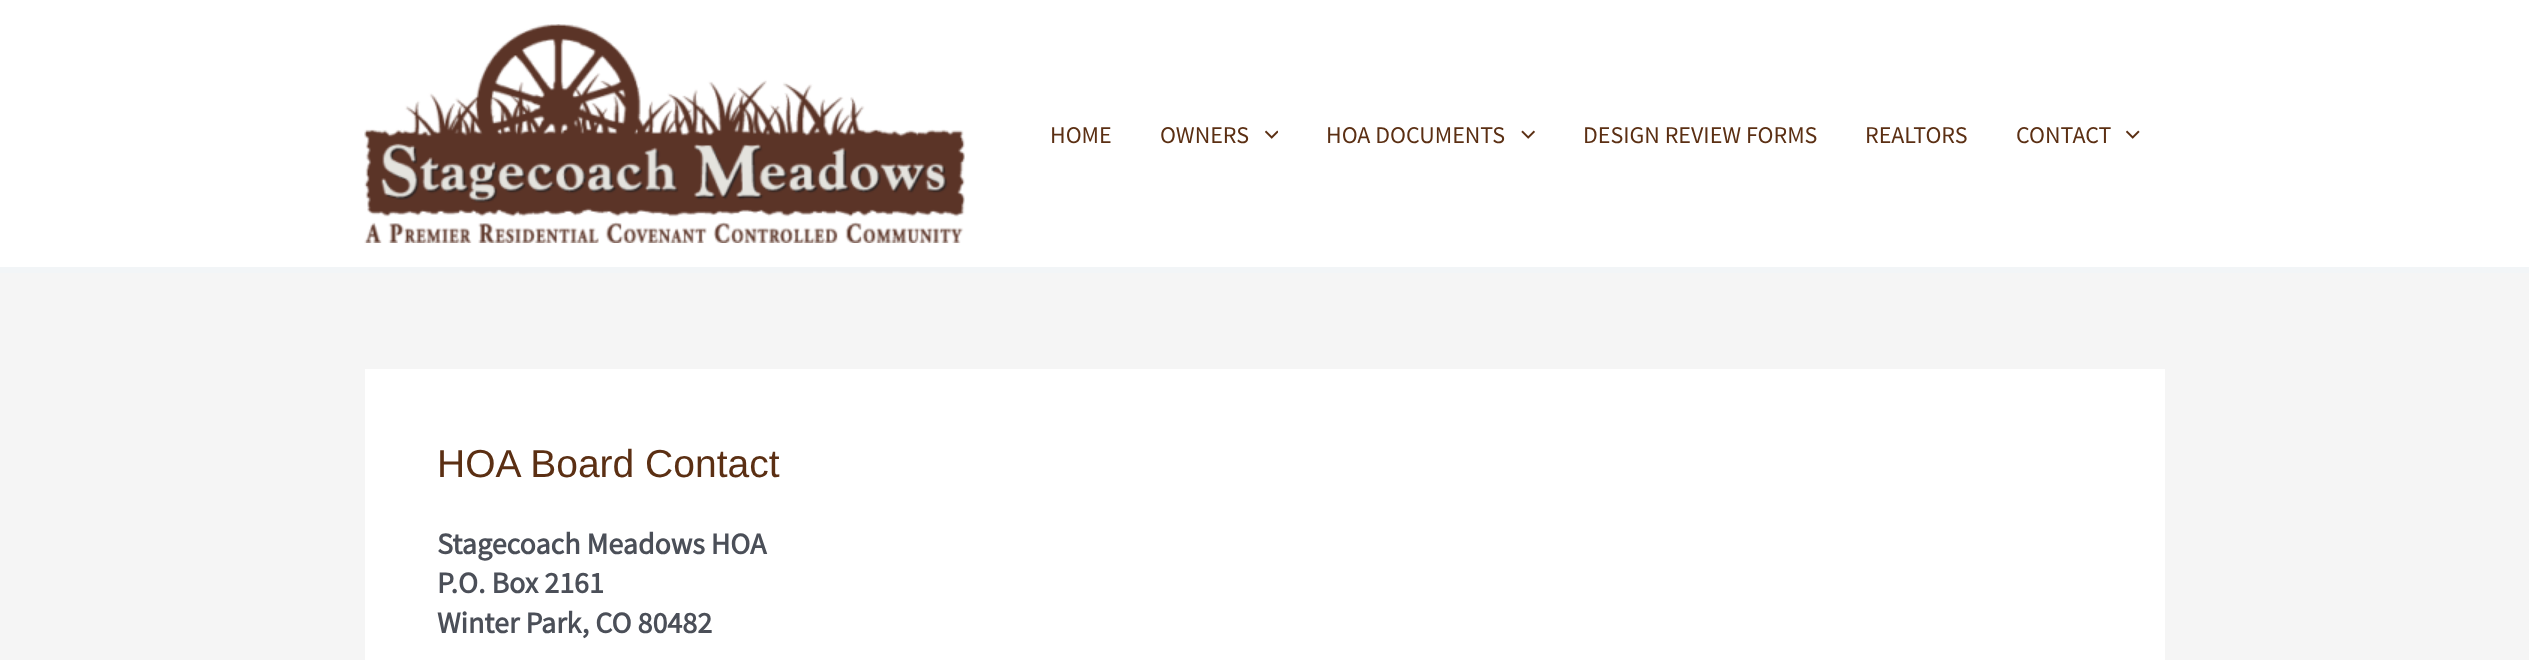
<!DOCTYPE html>
<meta charset="utf-8">
<style>body { margin: 0 } canvas { display: block }</style>
<canvas id="canvas" width="2529" height="660"></canvas>
<script type="module">
  const canvas = document.getElementById("canvas");
  const ctx = canvas.getContext("2d");
  ctx.miterLimit = 4;
  ctx.fontKerning = "normal";
  async function loadImage(src) {
    const img = new Image();
    img.src = src;
    await img.decode();
    return img;
  }

  ctx.fillStyle = "#f5f5f5";
  ctx.fillRect(0, 0, 2529, 660);
  ctx.fillStyle = "#ffffff";
  ctx.fillRect(0, 0, 2529, 267);
  ctx.fillStyle = "#f2f5f7";
  ctx.fillRect(0, 267, 2529, 6);
  ctx.drawImage(await loadImage("img1.png"), 364, 24, 601, 219);
  ctx.font = "24px Source Sans Pro";
  ctx.fillStyle = "#5b2f13";
  ctx.fillText("HOME", 1050, 143);
  ctx.fillText("OWNERS", 1160, 143);
  ctx.drawImage(await loadImage("img2.png"), 1265, 130, 13, 9);
  ctx.fillText("HOA DOCUMENTS", 1326, 143);
  ctx.drawImage(await loadImage("img3.png"), 1521, 130, 14, 9);
  ctx.fillText("DESIGN REVIEW FORMS", 1583, 143);
  ctx.fillText("REALTORS", 1865, 143);
  ctx.fillText("CONTACT", 2016, 143);
  ctx.drawImage(await loadImage("img4.png"), 2126, 130, 14, 9);
  ctx.fillStyle = "#ffffff";
  ctx.fillRect(365, 369, 1800, 291);
  ctx.font = "39px Liberation Sans";
  ctx.fillStyle = "#5b2f13";
  ctx.fillText("HOA Board Contact", 437, 477);
  ctx.font = "bold 30px Source Sans Pro";
  ctx.fillStyle = "#4b4f58";
  ctx.fillText("Stagecoach Meadows HOA", 437, 554);
  ctx.fillText("P.O. Box 2161", 437, 593);
  ctx.fillText("Winter Park, CO 80482", 437, 633);
</script>
